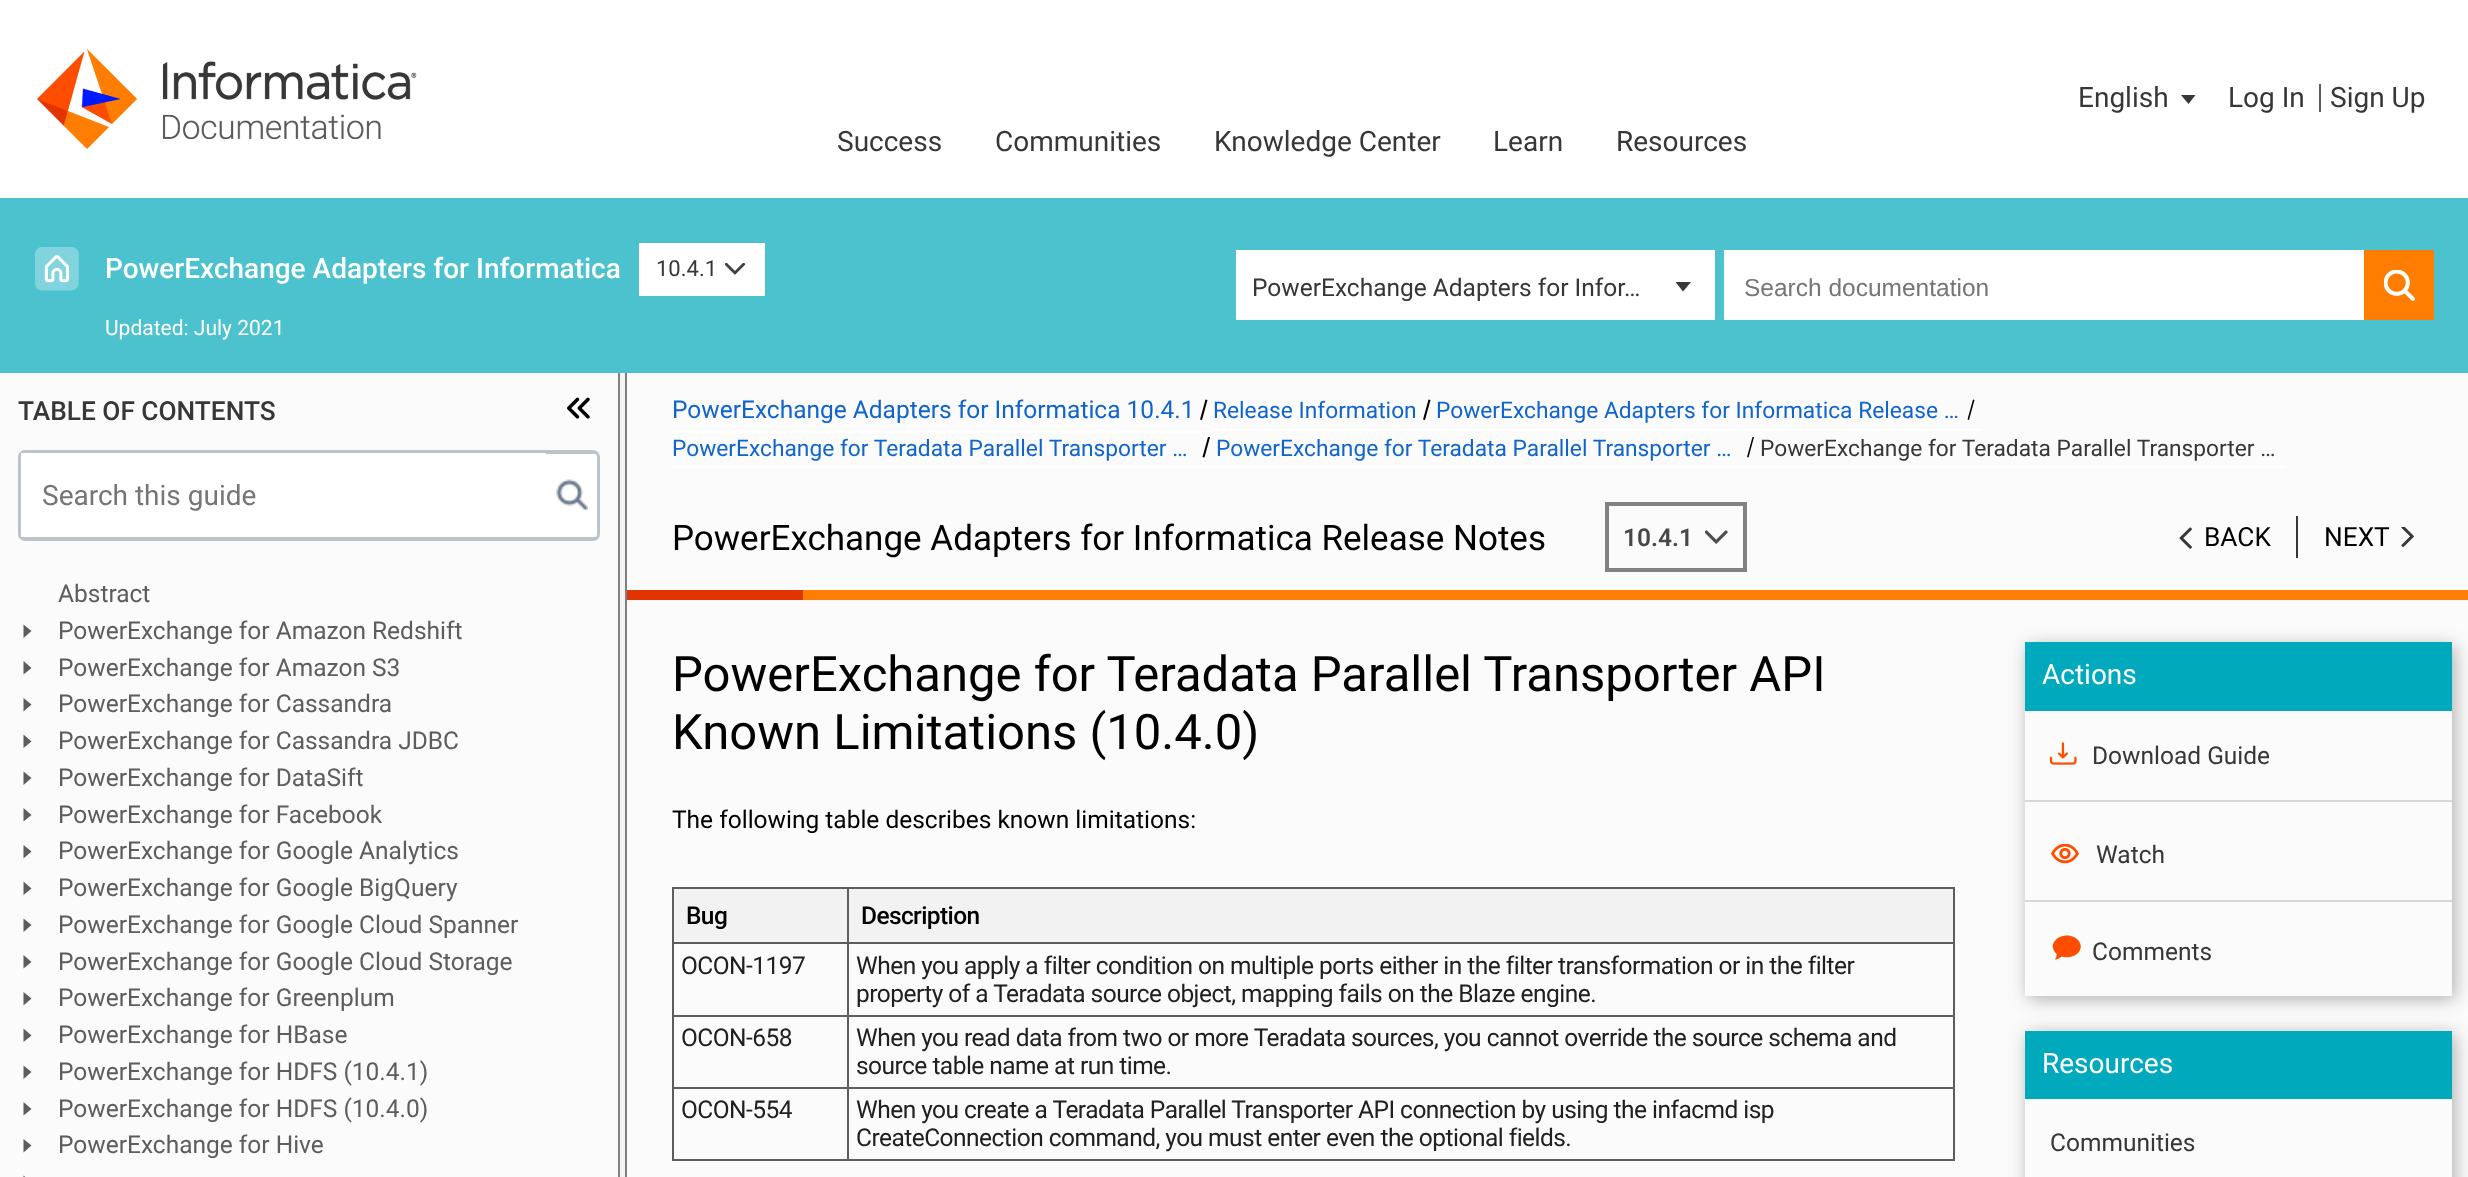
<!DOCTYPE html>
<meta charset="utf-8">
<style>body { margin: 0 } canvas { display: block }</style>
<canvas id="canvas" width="2468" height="1177"></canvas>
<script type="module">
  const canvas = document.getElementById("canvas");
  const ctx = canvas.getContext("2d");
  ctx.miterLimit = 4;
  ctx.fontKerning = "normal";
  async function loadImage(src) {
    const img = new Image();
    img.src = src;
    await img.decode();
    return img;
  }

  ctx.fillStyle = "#ffffff";
  ctx.fillRect(0, 0, 2468, 1177);
  ctx.drawImage(await loadImage("img1.png"), 36, 48, 381, 102);
  ctx.font = "28px Roboto";
  ctx.fillStyle = "#373737";
  ctx.fillText("English", 2078, 107);
  ctx.beginPath();
  ctx.moveTo(2195.5, 95);
  ctx.lineTo(2188.5, 104);
  ctx.lineTo(2181, 95);
  ctx.closePath();
  ctx.fill();
  ctx.fillText("Log In", 2228, 107);
  ctx.fillStyle = "#5d5d5d";
  ctx.fillRect(2319, 84, 2, 28);
  ctx.fillStyle = "#373737";
  ctx.fillText("Sign Up", 2330, 107);
  ctx.fillText("Success", 837, 151);
  ctx.fillText("Communities", 995, 151);
  ctx.fillText("Knowledge Center", 1214, 151);
  ctx.fillText("Learn", 1493, 151);
  ctx.fillText("Resources", 1616, 151);
  ctx.fillStyle = "#4dc2cf";
  ctx.fillRect(0, 198, 2468, 175);
  ctx.drawImage(await loadImage("img2.png"), 35, 247, 44, 44);
  ctx.font = "500 28px Roboto";
  ctx.fillStyle = "#ffffff";
  ctx.fillText("PowerExchange Adapters for Informatica", 105, 278);
  ctx.fillRect(639, 243, 126, 53);
  ctx.font = "22px Roboto";
  ctx.fillStyle = "#373737";
  ctx.fillText("10.4.1", 656, 276);
  ctx.drawImage(await loadImage("img3.png"), 725, 263, 21, 12);
  ctx.font = "21px Roboto";
  ctx.fillStyle = "#ffffff";
  ctx.fillText("Updated: July 2021", 105, 335);
  ctx.fillRect(1236, 250, 479, 70);
  ctx.font = "24.5px Roboto";
  ctx.fillStyle = "#373737";
  ctx.fillText("PowerExchange Adapters for Infor…", 1252, 296);
  ctx.beginPath();
  ctx.moveTo(1691, 282);
  ctx.lineTo(1683, 291.5);
  ctx.lineTo(1675.5, 282);
  ctx.closePath();
  ctx.fill();
  ctx.fillStyle = "#ffffff";
  ctx.fillRect(1724, 250, 640, 70);
  ctx.font = "24.5px Liberation Sans";
  ctx.fillStyle = "#757575";
  ctx.fillText("Search documentation", 1744, 296);
  ctx.fillStyle = "#ff7d00";
  ctx.fillRect(2364, 250, 70, 70);
  ctx.drawImage(await loadImage("img4.png"), 2384, 270, 31, 31);
  ctx.fillStyle = "#fbfbfb";
  ctx.fillRect(0, 373, 618, 804);
  ctx.font = "500 26.25px Roboto";
  ctx.fillStyle = "#373737";
  ctx.fillText("TABLE OF CONTENTS", 18, 420);
  ctx.fillStyle = "#ffffff";
  ctx.beginPath();
  ctx.roundRect(19, 451, 580, 89, 6);
  ctx.fill();
  ctx.strokeStyle = "#bcc3ca";
  ctx.lineWidth = 2;
  ctx.stroke();
  ctx.beginPath();
  ctx.roundRect(20, 453, 578, 85, 3);
  ctx.stroke();
  ctx.fillRect(21, 453, 525, 84);
  ctx.font = "28px Roboto";
  ctx.fillStyle = "#757575";
  ctx.fillText("Search this guide", 42, 505);
  ctx.drawImage(await loadImage("img5.png"), 556, 479, 32, 32);
  ctx.drawImage(await loadImage("img6.png"), 567, 397, 23, 22);
  ctx.fillStyle = "#f4f4f4";
  ctx.fillRect(620, 373, 5, 804);
  ctx.fillStyle = "#808080";
  ctx.fillRect(625, 373, 2, 804);
  ctx.fillRect(618, 373, 2, 804);
  ctx.font = "24.5px Roboto";
  ctx.fillStyle = "#5d5d5d";
  ctx.fillText("Abstract", 58, 602);
  ctx.beginPath();
  ctx.moveTo(23.5, 624.5);
  ctx.lineTo(31.5, 631);
  ctx.lineTo(23.5, 638);
  ctx.closePath();
  ctx.fill();
  ctx.fillText("PowerExchange for Amazon Redshift", 58, 639);
  ctx.beginPath();
  ctx.moveTo(23.5, 661);
  ctx.lineTo(31.5, 668);
  ctx.lineTo(23.5, 674.5);
  ctx.closePath();
  ctx.fill();
  ctx.fillText("PowerExchange for Amazon S3", 58, 676);
  ctx.beginPath();
  ctx.moveTo(23.5, 698);
  ctx.lineTo(31.5, 704.5);
  ctx.lineTo(23.5, 711.5);
  ctx.closePath();
  ctx.fill();
  ctx.fillText("PowerExchange for Cassandra", 58, 712);
  ctx.beginPath();
  ctx.moveTo(23.5, 734.5);
  ctx.lineTo(31.5, 741.5);
  ctx.lineTo(23.5, 748);
  ctx.closePath();
  ctx.fill();
  ctx.fillText("PowerExchange for Cassandra JDBC", 58, 749);
  ctx.beginPath();
  ctx.moveTo(23.5, 771.5);
  ctx.lineTo(31.5, 778);
  ctx.lineTo(23.5, 785);
  ctx.closePath();
  ctx.fill();
  ctx.fillText("PowerExchange for DataSift", 58, 786);
  ctx.beginPath();
  ctx.moveTo(23.5, 808);
  ctx.lineTo(31.5, 815);
  ctx.lineTo(23.5, 821.5);
  ctx.closePath();
  ctx.fill();
  ctx.fillText("PowerExchange for Facebook", 58, 823);
  ctx.beginPath();
  ctx.moveTo(23.5, 845);
  ctx.lineTo(31.5, 851.5);
  ctx.lineTo(23.5, 858.5);
  ctx.closePath();
  ctx.fill();
  ctx.fillText("PowerExchange for Google Analytics", 58, 859);
  ctx.beginPath();
  ctx.moveTo(23.5, 881.5);
  ctx.lineTo(31.5, 888.5);
  ctx.lineTo(23.5, 895);
  ctx.closePath();
  ctx.fill();
  ctx.fillText("PowerExchange for Google BigQuery", 58, 896);
  ctx.beginPath();
  ctx.moveTo(23.5, 918.5);
  ctx.lineTo(31.5, 925);
  ctx.lineTo(23.5, 932);
  ctx.closePath();
  ctx.fill();
  ctx.fillText("PowerExchange for Google Cloud Spanner", 58, 933);
  ctx.beginPath();
  ctx.moveTo(23.5, 955);
  ctx.lineTo(31.5, 962);
  ctx.lineTo(23.5, 968.5);
  ctx.closePath();
  ctx.fill();
  ctx.fillText("PowerExchange for Google Cloud Storage", 58, 970);
  ctx.beginPath();
  ctx.moveTo(23.5, 992);
  ctx.lineTo(31.5, 998.5);
  ctx.lineTo(23.5, 1005.5);
  ctx.closePath();
  ctx.fill();
  ctx.fillText("PowerExchange for Greenplum", 58, 1006);
  ctx.beginPath();
  ctx.moveTo(23.5, 1028.5);
  ctx.lineTo(31.5, 1035.5);
  ctx.lineTo(23.5, 1042);
  ctx.closePath();
  ctx.fill();
  ctx.fillText("PowerExchange for HBase", 58, 1043);
  ctx.beginPath();
  ctx.moveTo(23.5, 1065.5);
  ctx.lineTo(31.5, 1072);
  ctx.lineTo(23.5, 1079);
  ctx.closePath();
  ctx.fill();
  ctx.fillText("PowerExchange for HDFS (10.4.1)", 58, 1080);
  ctx.beginPath();
  ctx.moveTo(23.5, 1102);
  ctx.lineTo(31.5, 1109);
  ctx.lineTo(23.5, 1115.5);
  ctx.closePath();
  ctx.fill();
  ctx.fillText("PowerExchange for HDFS (10.4.0)", 58, 1117);
  ctx.beginPath();
  ctx.moveTo(23.5, 1139);
  ctx.lineTo(31.5, 1145.5);
  ctx.lineTo(23.5, 1152.5);
  ctx.closePath();
  ctx.moveTo(23.5, 1175.5);
  ctx.lineTo(31.5, 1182.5);
  ctx.lineTo(23.5, 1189);
  ctx.closePath();
  ctx.fill();
  ctx.fillText("PowerExchange for Hive", 58, 1153);
  ctx.fillStyle = "#fbfbfb";
  ctx.fillRect(627, 373, 1841, 804);
  ctx.fillStyle = "#ffffff";
  ctx.fillRect(672, 431, 541, 2);
  ctx.fillStyle = "#0f64cd";
  ctx.fillText("PowerExchange Adapters for Informatica 10.4.1", 672, 418);
  ctx.fillStyle = "#000000";
  ctx.beginPath();
  ctx.moveTo(1205.5, 399.5);
  ctx.lineTo(1207.5, 400);
  ctx.lineTo(1202, 420);
  ctx.lineTo(1200, 419.5);
  ctx.closePath();
  ctx.fill();
  ctx.fillStyle = "#ffffff";
  ctx.fillRect(1213, 429, 768, 2);
  ctx.font = "22.75px Roboto";
  ctx.fillStyle = "#0f64cd";
  ctx.fillText("Release Information", 1213, 418);
  ctx.fillStyle = "#000000";
  ctx.beginPath();
  ctx.moveTo(1428.5, 399.5);
  ctx.lineTo(1430.5, 400);
  ctx.lineTo(1425, 420);
  ctx.lineTo(1423, 419.5);
  ctx.closePath();
  ctx.fill();
  ctx.fillStyle = "#0f64cd";
  ctx.fillText("PowerExchange Adapters for Informatica Release …", 1436, 418);
  ctx.fillStyle = "#000000";
  ctx.beginPath();
  ctx.moveTo(1973, 399.5);
  ctx.lineTo(1974.5, 400);
  ctx.lineTo(1969, 420);
  ctx.lineTo(1967.5, 419.5);
  ctx.closePath();
  ctx.fill();
  ctx.fillStyle = "#ffffff";
  ctx.fillRect(672, 466, 1614, 2);
  ctx.fillStyle = "#0f64cd";
  ctx.fillText("PowerExchange for Teradata Parallel Transporter …", 672, 456);
  ctx.fillStyle = "#000000";
  ctx.beginPath();
  ctx.moveTo(1208, 437);
  ctx.lineTo(1210, 437);
  ctx.lineTo(1204.5, 457.5);
  ctx.lineTo(1202.5, 457);
  ctx.closePath();
  ctx.fill();
  ctx.fillStyle = "#0f64cd";
  ctx.fillText("PowerExchange for Teradata Parallel Transporter …", 1216, 456);
  ctx.fillStyle = "#000000";
  ctx.beginPath();
  ctx.moveTo(1752.5, 437);
  ctx.lineTo(1754, 437);
  ctx.lineTo(1748.5, 457.5);
  ctx.lineTo(1747, 457);
  ctx.closePath();
  ctx.fill();
  ctx.fillStyle = "#373737";
  ctx.fillText("PowerExchange for Teradata Parallel Transporter …", 1760, 456);
  ctx.font = "35px Roboto";
  ctx.fillStyle = "#000000";
  ctx.fillText("PowerExchange Adapters for Informatica Release Notes", 672, 550);
  ctx.strokeStyle = "#828282";
  ctx.lineWidth = 4;
  ctx.strokeRect(1607, 504, 138, 66);
  ctx.font = "600 24.5px Roboto";
  ctx.fillStyle = "#484848";
  ctx.fillText("10.4.1", 1623, 546);
  ctx.drawImage(await loadImage("img7.png"), 1705, 530, 23, 14);
  ctx.drawImage(await loadImage("img8.png"), 2179, 527, 13, 22);
  ctx.font = "26.25px Roboto";
  ctx.fillStyle = "#000000";
  ctx.fillText("BACK", 2204, 546);
  ctx.fillStyle = "#373737";
  ctx.fillRect(2296, 516, 2, 42);
  ctx.fillStyle = "#000000";
  ctx.fillText("NEXT", 2324, 546);
  ctx.drawImage(await loadImage("img9.png"), 2401, 527, 13, 21);
  ctx.fillStyle = "#ff7d00";
  ctx.fillRect(803, 590, 1665, 10);
  ctx.fillStyle = "#e23400";
  ctx.fillRect(627, 590, 176, 10);
  ctx.font = "49px Roboto";
  ctx.fillStyle = "#000000";
  ctx.fillText("PowerExchange for Teradata Parallel Transporter API", 672, 691);
  ctx.fillText("Known Limitations (10.4.0)", 672, 749);
  ctx.font = "24.5px Roboto";
  ctx.fillText("The following table describes known limitations:", 672, 828);
  ctx.fillStyle = "#5d5d5d";
  ctx.fillRect(672, 887, 1283, 2);
  ctx.fillRect(1953, 887, 2, 273);
  ctx.fillRect(672, 1159, 1283, 2);
  ctx.fillRect(672, 887, 2, 273);
  ctx.fillStyle = "#f2f2f2";
  ctx.fillRect(674, 889, 173, 53);
  ctx.letterSpacing = "-0.6px";
  ctx.font = "500 24.5px Roboto";
  ctx.fillStyle = "#000000";
  ctx.fillText("Bug", 686, 924);
  ctx.fillStyle = "#f2f2f2";
  ctx.fillRect(849, 889, 1104, 53);
  ctx.fillStyle = "#5d5d5d";
  ctx.fillRect(847, 942, 1108, 2);
  ctx.fillRect(847, 1015, 1108, 2);
  ctx.fillRect(847, 1087, 1108, 2);
  ctx.fillRect(847, 1087, 2, 73);
  ctx.fillRect(672, 1087, 177, 2);
  ctx.fillRect(847, 1015, 2, 74);
  ctx.fillRect(672, 1015, 177, 2);
  ctx.fillRect(847, 942, 2, 75);
  ctx.fillRect(672, 942, 177, 2);
  ctx.fillRect(847, 887, 2, 56);
  ctx.fillStyle = "#000000";
  ctx.fillText("Description", 861, 924);
  ctx.letterSpacing = "-0.53px";
  ctx.font = "24.5px Roboto";
  ctx.fillStyle = "#202020";
  ctx.fillText("OCON-1197", 681, 974);
  ctx.fillText("When you apply a filter condition on multiple ports either in the filter transformation or in the filter", 856, 974);
  ctx.fillText("property of a Teradata source object, mapping fails on the Blaze engine.", 856, 1002);
  ctx.fillText("OCON-658", 681, 1046);
  ctx.fillText("When you read data from two or more Teradata sources, you cannot override the source schema and", 856, 1046);
  ctx.fillText("source table name at run time.", 856, 1074);
  ctx.fillText("OCON-554", 681, 1118);
  ctx.fillText("When you create a Teradata Parallel Transporter API connection by using the infacmd isp", 856, 1118);
  ctx.fillText("CreateConnection command, you must enter even the optional fields.", 856, 1146);
  ctx.save();
  ctx.beginPath();
  ctx.moveTo(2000, 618);
  ctx.lineTo(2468, 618);
  ctx.lineTo(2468, 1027);
  ctx.lineTo(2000, 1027);
  ctx.closePath();
  ctx.moveTo(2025, 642);
  ctx.lineTo(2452, 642);
  ctx.lineTo(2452, 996);
  ctx.lineTo(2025, 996);
  ctx.closePath();
  ctx.clip("evenodd");
  ctx.fillStyle = "rgba(0, 0, 0, 0.3)";
  ctx.filter = "blur(9px)";
  ctx.beginPath();
  ctx.rect(2028, 646, 427, 353);
  ctx.fill();
  ctx.filter = "none";
  ctx.restore();
  ctx.fillStyle = "#00a9bb";
  ctx.fillRect(2025, 642, 427, 69);
  ctx.letterSpacing = "0px";
  ctx.font = "28px Roboto";
  ctx.fillStyle = "#ffffff";
  ctx.fillText("Actions", 2042, 684);
  ctx.fillStyle = "#d8d8d8";
  ctx.fillRect(2025, 800, 427, 2);
  ctx.drawImage(await loadImage("img10.png"), 2049, 742, 28, 23);
  ctx.font = "24.5px Roboto";
  ctx.fillStyle = "#373737";
  ctx.fillText("Download Guide", 2092, 764);
  ctx.fillStyle = "#d8d8d8";
  ctx.fillRect(2025, 900, 427, 2);
  ctx.drawImage(await loadImage("img11.png"), 2051, 844, 28, 20);
  ctx.fillStyle = "#373737";
  ctx.fillText("Watch", 2096, 863);
  ctx.drawImage(await loadImage("img12.png"), 2052, 935, 29, 25);
  ctx.fillText("Comments", 2092, 960);
  ctx.save();
  ctx.beginPath();
  ctx.moveTo(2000, 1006);
  ctx.lineTo(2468, 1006);
  ctx.lineTo(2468, 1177);
  ctx.lineTo(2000, 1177);
  ctx.closePath();
  ctx.moveTo(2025, 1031);
  ctx.lineTo(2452, 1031);
  ctx.lineTo(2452, 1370);
  ctx.lineTo(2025, 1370);
  ctx.closePath();
  ctx.clip("evenodd");
  ctx.fillStyle = "rgba(0, 0, 0, 0.3)";
  ctx.filter = "blur(9px)";
  ctx.beginPath();
  ctx.rect(2028, 1034, 427, 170);
  ctx.fill();
  ctx.filter = "none";
  ctx.restore();
  ctx.fillStyle = "#00a9bb";
  ctx.fillRect(2025, 1031, 427, 68);
  ctx.font = "28px Roboto";
  ctx.fillStyle = "#ffffff";
  ctx.fillText("Resources", 2042, 1073);
  ctx.font = "24.5px Roboto";
  ctx.fillStyle = "#373737";
  ctx.fillText("Communities", 2050, 1151);
</script>
